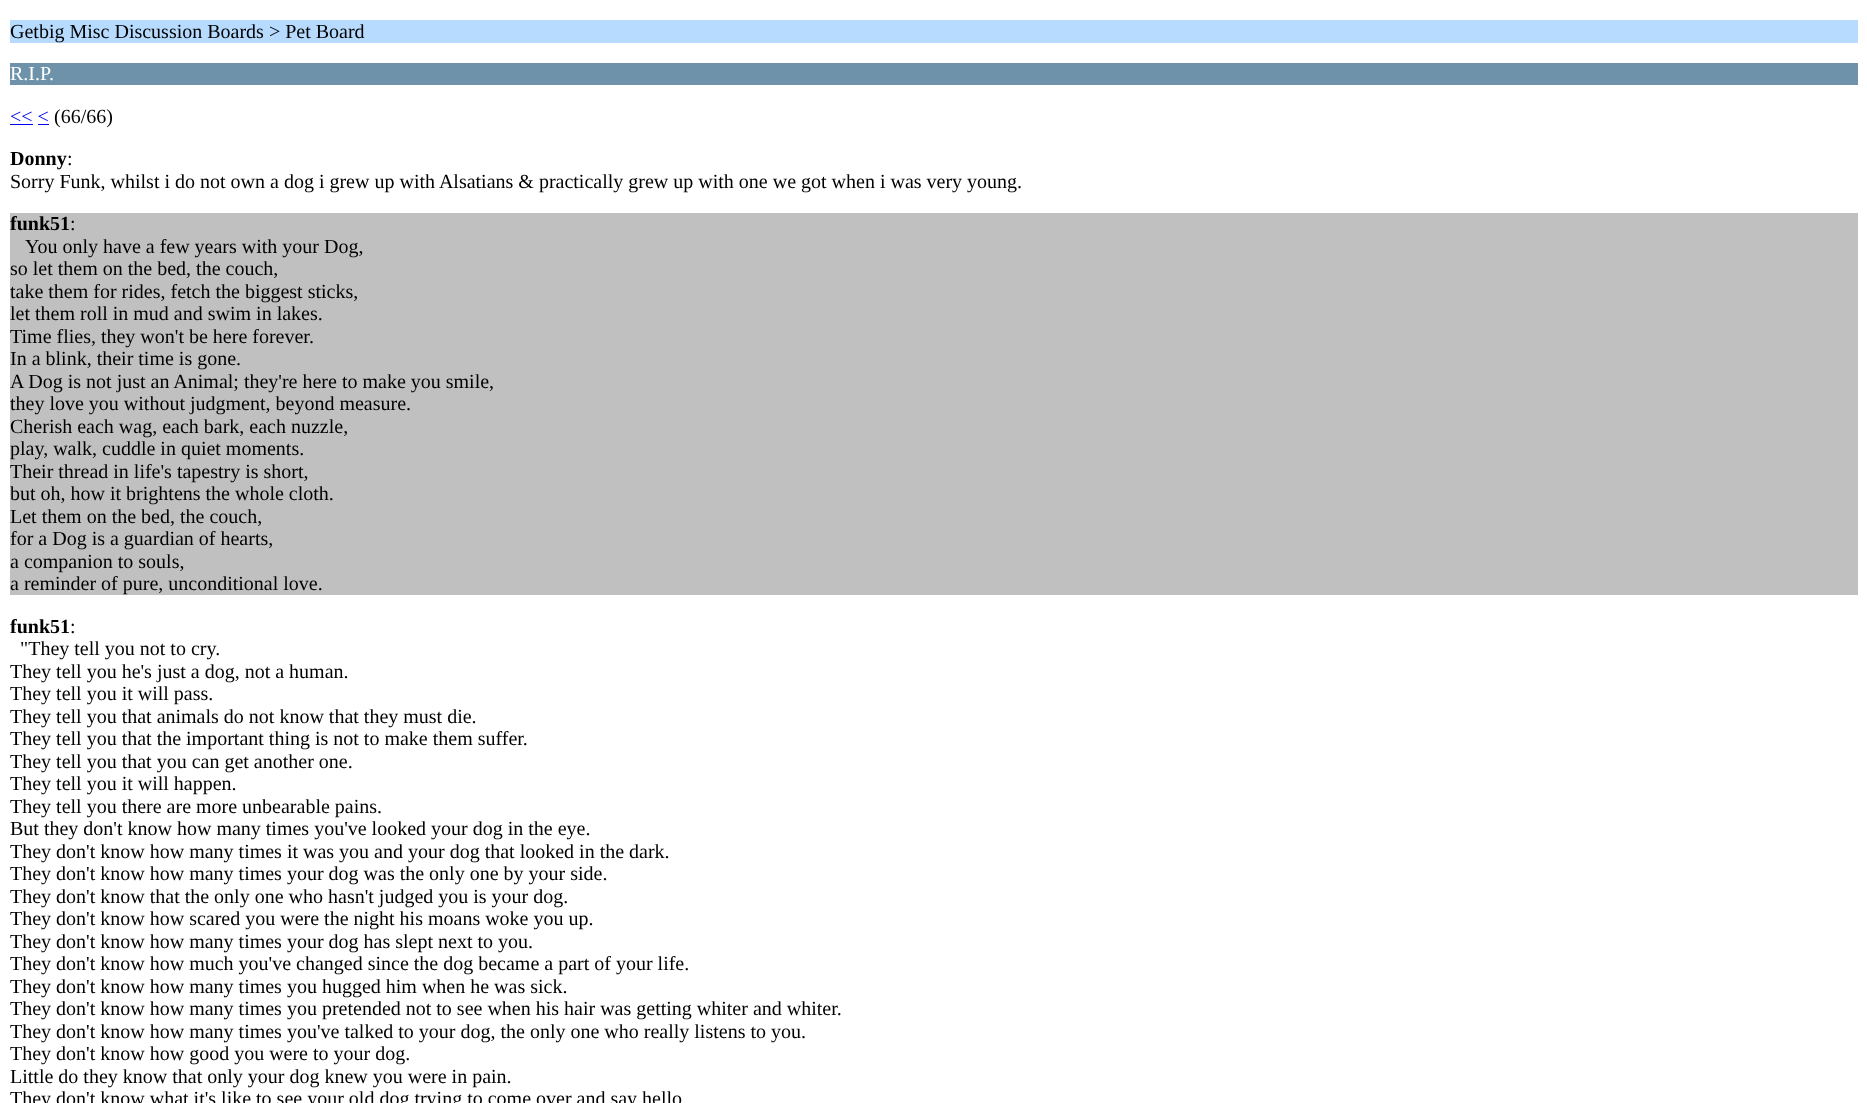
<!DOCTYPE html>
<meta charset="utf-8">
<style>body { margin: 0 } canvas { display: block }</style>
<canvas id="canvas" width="1867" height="1103"></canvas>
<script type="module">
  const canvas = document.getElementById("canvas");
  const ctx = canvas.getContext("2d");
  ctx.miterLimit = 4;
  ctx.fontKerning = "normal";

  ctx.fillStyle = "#ffffff";
  ctx.fillRect(0, 0, 1867, 1103);
  ctx.fillStyle = "#b6dbff";
  ctx.fillRect(10, 20, 1848, 23);
  ctx.font = "20px Liberation Serif";
  ctx.fillStyle = "#000000";
  ctx.fillText("Getbig Misc Discussion Boards > Pet Board", 10, 38);
  ctx.fillStyle = "#6d92aa";
  ctx.fillRect(10, 63, 1848, 22);
  ctx.fillStyle = "#ffffff";
  ctx.fillText("R.I.P.", 10, 80);
  ctx.fillStyle = "#0000ee";
  ctx.fillText("<< <", 10, 123);
  ctx.fillRect(10, 124, 23, 1);
  ctx.fillStyle = "#000000";
  ctx.fillText("(66/66)", 54, 123);
  ctx.fillStyle = "#0000ee";
  ctx.fillRect(38, 124, 11, 1);
  ctx.font = "bold 20px Liberation Serif";
  ctx.fillStyle = "#000000";
  ctx.fillText("Donny", 10, 165);
  ctx.font = "20px Liberation Serif";
  ctx.fillText(":", 67, 165);
  ctx.fillText("Sorry Funk, whilst i do not own a dog i grew up with Alsatians & practically grew up with one we got when i was very young.", 10, 188);
  ctx.fillStyle = "#c0c0c0";
  ctx.fillRect(10, 213, 1848, 382);
  ctx.font = "bold 20px Liberation Serif";
  ctx.fillStyle = "#000000";
  ctx.fillText("funk51", 10, 230);
  ctx.font = "20px Liberation Serif";
  ctx.fillText(":", 70, 230);
  ctx.fillText("You only have a few years with your Dog,", 25, 253);
  ctx.fillText("so let them on the bed, the couch,", 10, 275);
  ctx.fillText("take them for rides, fetch the biggest sticks,", 10, 298);
  ctx.fillText("let them roll in mud and swim in lakes.", 10, 320);
  ctx.fillText("Time flies, they won't be here forever.", 10, 343);
  ctx.fillText("In a blink, their time is gone.", 10, 365);
  ctx.fillText("A Dog is not just an Animal; they're here to make you smile,", 10, 388);
  ctx.fillText("they love you without judgment, beyond measure.", 10, 410);
  ctx.fillText("Cherish each wag, each bark, each nuzzle,", 10, 433);
  ctx.fillText("play, walk, cuddle in quiet moments.", 10, 455);
  ctx.fillText("Their thread in life's tapestry is short,", 10, 478);
  ctx.fillText("but oh, how it brightens the whole cloth.", 10, 500);
  ctx.fillText("Let them on the bed, the couch,", 10, 523);
  ctx.fillText("for a Dog is a guardian of hearts,", 10, 545);
  ctx.fillText("a companion to souls,", 10, 568);
  ctx.fillText("a reminder of pure, unconditional love.", 10, 590);
  ctx.font = "bold 20px Liberation Serif";
  ctx.fillText("funk51", 10, 633);
  ctx.font = "20px Liberation Serif";
  ctx.fillText(":", 70, 633);
  ctx.fillText("\"They tell you not to cry.", 20, 655);
  ctx.fillText("They tell you he's just a dog, not a human.", 10, 678);
  ctx.fillText("They tell you it will pass.", 10, 700);
  ctx.fillText("They tell you that animals do not know that they must die.", 10, 723);
  ctx.fillText("They tell you that the important thing is not to make them suffer.", 10, 745);
  ctx.fillText("They tell you that you can get another one.", 10, 768);
  ctx.fillText("They tell you it will happen.", 10, 790);
  ctx.fillText("They tell you there are more unbearable pains.", 10, 813);
  ctx.fillText("But they don't know how many times you've looked your dog in the eye.", 10, 835);
  ctx.fillText("They don't know how many times it was you and your dog that looked in the dark.", 10, 858);
  ctx.fillText("They don't know how many times your dog was the only one by your side.", 10, 880);
  ctx.fillText("They don't know that the only one who hasn't judged you is your dog.", 10, 903);
  ctx.fillText("They don't know how scared you were the night his moans woke you up.", 10, 925);
  ctx.fillText("They don't know how many times your dog has slept next to you.", 10, 948);
  ctx.fillText("They don't know how much you've changed since the dog became a part of your life.", 10, 970);
  ctx.fillText("They don't know how many times you hugged him when he was sick.", 10, 993);
  ctx.fillText("They don't know how many times you pretended not to see when his hair was getting whiter and whiter.", 10, 1015);
  ctx.fillText("They don't know how many times you've talked to your dog, the only one who really listens to you.", 10, 1038);
  ctx.fillText("They don't know how good you were to your dog.", 10, 1060);
  ctx.fillText("Little do they know that only your dog knew you were in pain.", 10, 1083);
  ctx.fillText("They don't know what it's like to see your old dog trying to come over and say hello", 10, 1105);
</script>
